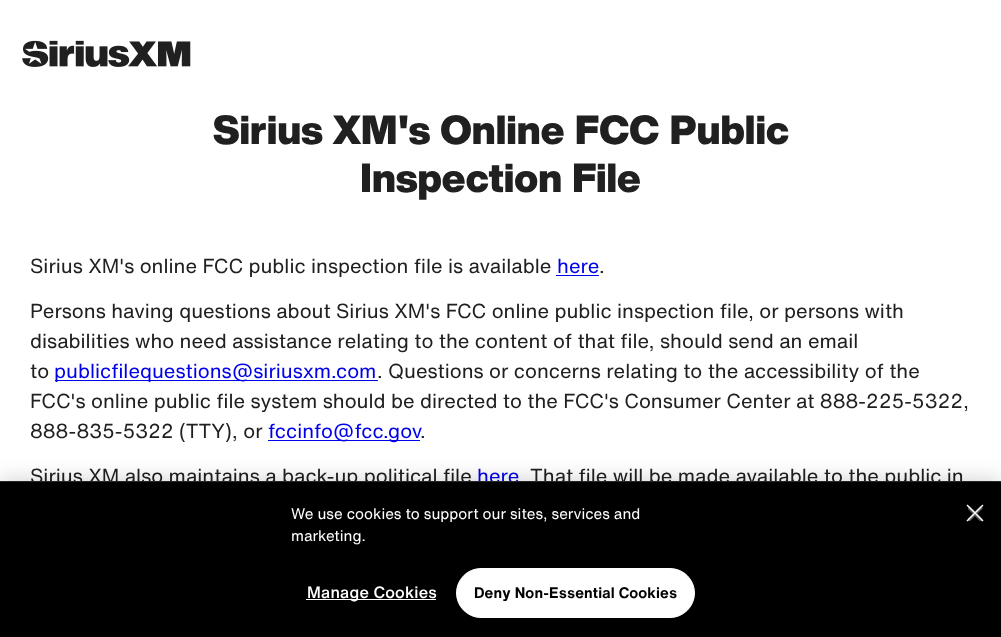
<!DOCTYPE html>
<meta charset="utf-8">
<style>body { margin: 0 } canvas { display: block }</style>
<canvas id="canvas" width="1001" height="637"></canvas>
<script type="module">
  const canvas = document.getElementById("canvas");
  const ctx = canvas.getContext("2d");
  ctx.miterLimit = 4;
  ctx.fontKerning = "normal";
  async function loadImage(src) {
    const img = new Image();
    img.src = src;
    await img.decode();
    return img;
  }

  ctx.fillStyle = "#ffffff";
  ctx.fillRect(0, 0, 1001, 637);
  ctx.drawImage(await loadImage("img1.png"), 22, 40, 169, 27);
  ctx.font = "900 40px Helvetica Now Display";
  ctx.fillStyle = "#202020";
  ctx.fillText("Sirius XM's Online FCC Public", 213, 144);
  ctx.fillText("Inspection File", 360, 192);
  ctx.font = "20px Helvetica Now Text";
  ctx.fillText("Sirius XM's online FCC public inspection file is available", 30, 273);
  ctx.fillStyle = "#0000eb";
  ctx.fillText("here", 557, 273);
  ctx.fillRect(556, 275, 43, 1);
  ctx.fillStyle = "#202020";
  ctx.fillText(".", 599, 273);
  ctx.fillText("Persons having questions about Sirius XM's FCC online public inspection file, or persons with", 30, 318);
  ctx.fillText("disabilities who need assistance relating to the content of that file, should send an email", 30, 348);
  ctx.fillText("to", 30, 378);
  ctx.fillStyle = "#0000eb";
  ctx.fillRect(55, 380, 323, 1);
  ctx.fillText("publicfilequestions@siriusxm.com", 54, 378);
  ctx.fillStyle = "#202020";
  ctx.fillText(". Questions or concerns relating to the accessibility of the", 377, 378);
  ctx.fillText("FCC's online public file system should be directed to the FCC's Consumer Center at 888-225-5322,", 30, 408);
  ctx.fillText("888-835-5322 (TTY), or", 30, 438);
  ctx.fillStyle = "#0000eb";
  ctx.fillRect(268, 440, 152, 1);
  ctx.fillStyle = "#202020";
  ctx.fillText(".", 420, 438);
  ctx.fillStyle = "#0000eb";
  ctx.fillText("fccinfo@fcc.gov", 268, 438);
  ctx.fillStyle = "#202020";
  ctx.fillText("Sirius XM also maintains a back-up political file", 30, 483);
  ctx.fillStyle = "#0000eb";
  ctx.fillText("here", 477, 483);
  ctx.fillStyle = "#202020";
  ctx.fillText("That file will be made available to the public in", 530, 483);
  ctx.fillStyle = "rgba(0, 0, 0, 0.2)";
  ctx.filter = "blur(11px)";
  ctx.beginPath();
  ctx.rect(0, 481, 1001, 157);
  ctx.fill();
  ctx.filter = "none";
  ctx.fillStyle = "#000000";
  ctx.fillRect(0, 482, 1001, 155);
  ctx.fillStyle = "#262626";
  ctx.fillRect(0, 481, 1001, 1);
  ctx.font = "15px Helvetica Now Text";
  ctx.fillStyle = "#ffffff";
  ctx.fillText("We use cookies to support our sites, services and", 291, 519);
  ctx.fillText("marketing.", 291, 541);
  ctx.fillRect(306, 599, 130, 1);
  ctx.letterSpacing = "0.2px";
  ctx.font = "500 16.25px Helvetica Now Text";
  ctx.fillText("Manage Cookies", 307, 598);
  ctx.beginPath();
  ctx.roundRect(456.5, 568.5, 238, 49, 24.5);
  ctx.fill();
  ctx.strokeStyle = "#ffffff";
  ctx.stroke();
  ctx.letterSpacing = "0.15px";
  ctx.font = "bold 15px Helvetica Now Text";
  ctx.fillStyle = "#000000";
  ctx.fillText("Deny Non-Essential Cookies", 474, 598);
  ctx.drawImage(await loadImage("img2.png"), 968, 506, 15, 15);
  ctx.fillStyle = "#ffffff";
  ctx.beginPath();
  ctx.moveTo(967.5, 504.5);
  ctx.lineTo(983.5, 520.5);
  ctx.lineTo(982.5, 521.5);
  ctx.lineTo(966.5, 505.5);
  ctx.closePath();
  ctx.fill();
  ctx.beginPath();
  ctx.moveTo(983.5, 505.5);
  ctx.lineTo(967.5, 521.5);
  ctx.lineTo(966.5, 520.5);
  ctx.lineTo(982.5, 504.5);
  ctx.closePath();
  ctx.fill();
</script>
